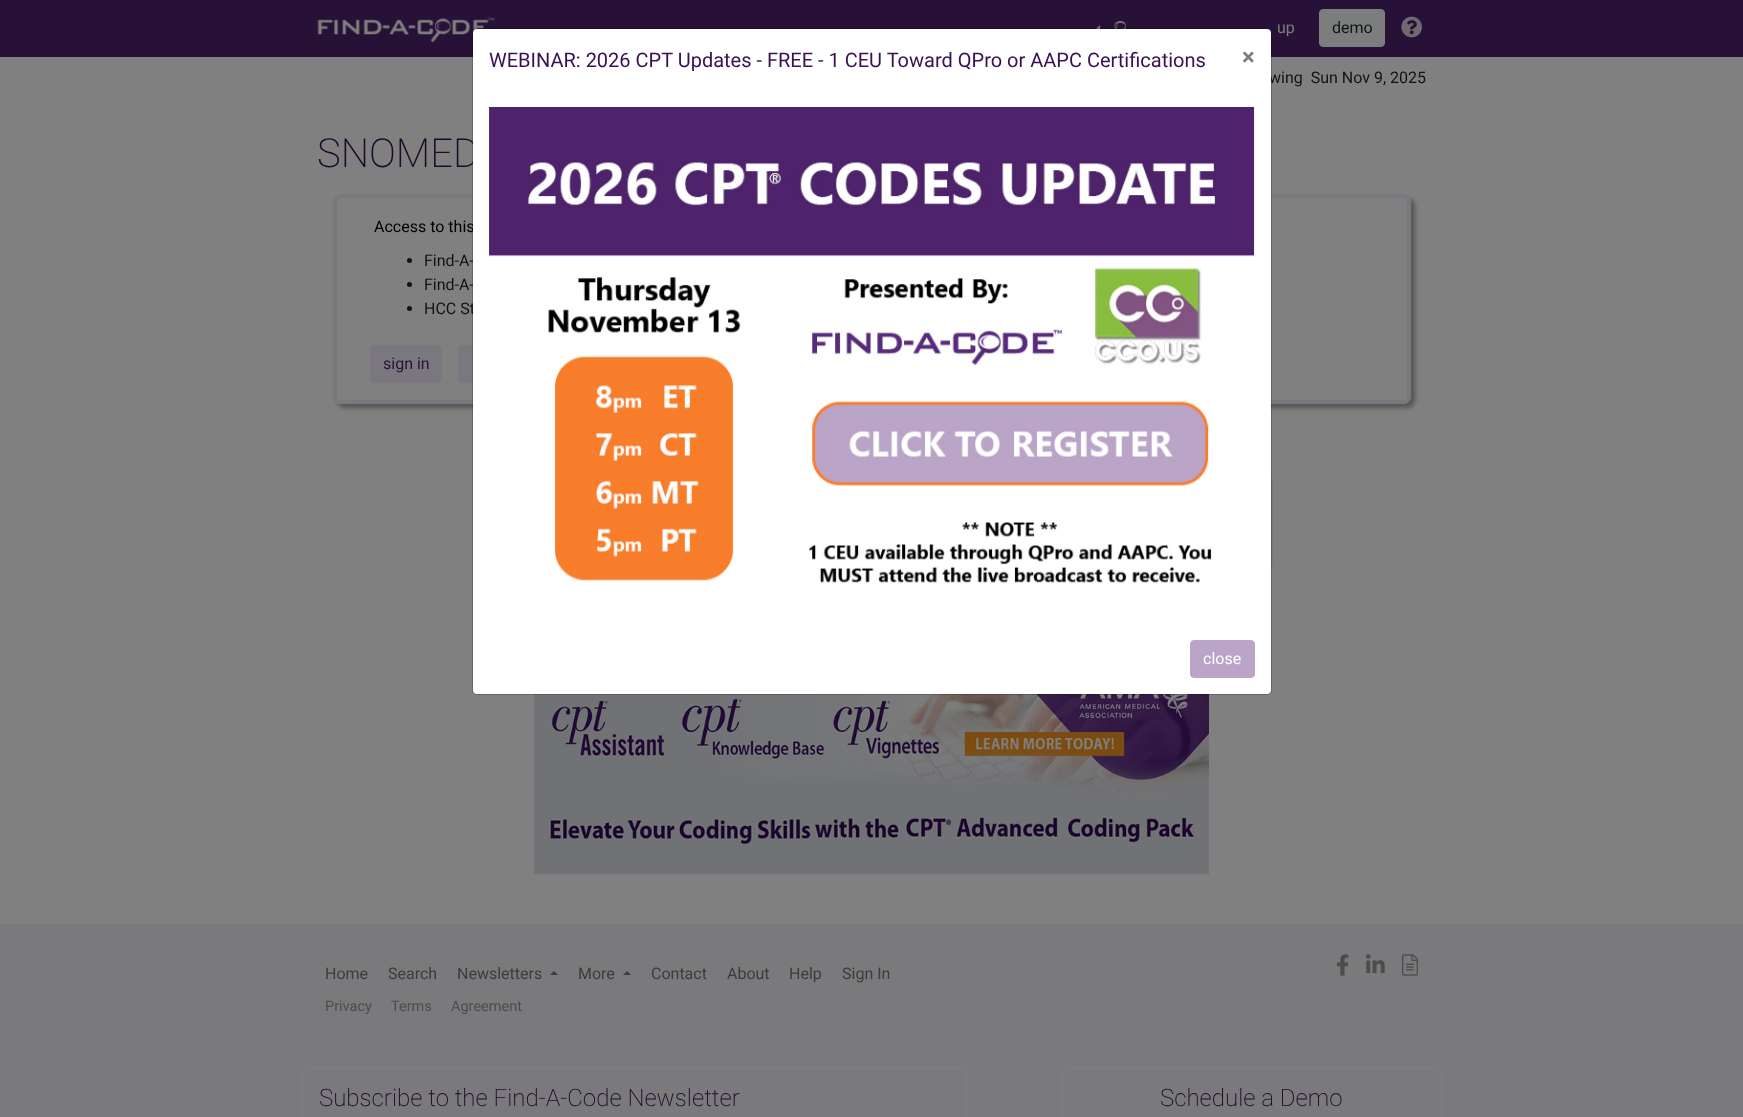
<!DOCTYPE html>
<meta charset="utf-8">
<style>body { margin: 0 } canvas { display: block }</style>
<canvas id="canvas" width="1743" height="1117"></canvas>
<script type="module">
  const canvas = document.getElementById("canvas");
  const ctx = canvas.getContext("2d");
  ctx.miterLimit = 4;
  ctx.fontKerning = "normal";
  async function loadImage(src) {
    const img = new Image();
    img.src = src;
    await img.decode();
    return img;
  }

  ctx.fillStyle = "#808080";
  ctx.fillRect(0, 0, 1743, 1117);
  ctx.font = "200 40px Roboto";
  ctx.fillStyle = "#1d092a";
  ctx.fillText("SNOMED", 317, 167);
  ctx.save();
  ctx.beginPath();
  ctx.moveTo(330, 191);
  ctx.lineTo(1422, 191);
  ctx.lineTo(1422, 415);
  ctx.lineTo(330, 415);
  ctx.closePath();
  ctx.moveTo(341, 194);
  ctx.lineTo(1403, 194);
  ctx.bezierCurveTo(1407.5, 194, 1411, 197.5, 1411, 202);
  ctx.lineTo(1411, 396);
  ctx.bezierCurveTo(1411, 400.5, 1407.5, 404, 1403, 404);
  ctx.lineTo(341, 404);
  ctx.bezierCurveTo(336.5, 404, 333, 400.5, 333, 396);
  ctx.lineTo(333, 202);
  ctx.bezierCurveTo(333, 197.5, 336.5, 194, 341, 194);
  ctx.closePath();
  ctx.clip("evenodd");
  ctx.fillStyle = "#555555";
  ctx.filter = "blur(2px)";
  ctx.beginPath();
  ctx.roundRect(337, 198, 1078, 210, 8);
  ctx.fill();
  ctx.filter = "none";
  ctx.restore();
  ctx.beginPath();
  ctx.roundRect(335, 196, 1074, 206, 6);
  ctx.strokeStyle = "#7b777f";
  ctx.lineWidth = 4;
  ctx.stroke();
  ctx.font = "16px Roboto";
  ctx.fillStyle = "#000000";
  ctx.fillText("Access to this", 374, 232);
  ctx.fillStyle = "#111315";
  ctx.fillText("Find-A-", 424, 266);
  ctx.fillText("Find-A-", 424, 290);
  ctx.fillText("HCC St", 424, 314);
  ctx.fillStyle = "#7b777f";
  ctx.beginPath();
  ctx.roundRect(458, 345, 78, 38, 4);
  ctx.fill();
  ctx.fillStyle = "#6f6f6f";
  ctx.filter = "blur(1px)";
  ctx.beginPath();
  ctx.roundRect(1052, 476, 220, 95, 4);
  ctx.fill();
  ctx.filter = "none";
  ctx.fillStyle = "#281136";
  ctx.fillRect(0, 0, 1743, 57);
  ctx.drawImage(await loadImage("img3.png"), 317, 17, 178, 26);
  ctx.fillStyle = "#808080";
  ctx.beginPath();
  ctx.moveTo(1100, 25);
  ctx.lineTo(1100, 33);
  ctx.lineTo(1096, 29);
  ctx.closePath();
  ctx.fill();
  ctx.fillStyle = "#111315";
  ctx.fillText("wing  Sun Nov 9, 2025", 1269, 83);
  ctx.fillStyle = "#ffffff";
  ctx.beginPath();
  ctx.roundRect(473, 29, 798, 665, 4);
  ctx.fill();
  ctx.drawImage(await loadImage("img2.png"), 534, 694, 675, 180);
  ctx.drawImage(await loadImage("img4.png"), 1114, 21, 12, 8);
  ctx.beginPath();
  ctx.roundRect(472.5, 28.5, 799, 666, 4.5);
  ctx.strokeStyle = "rgba(0, 0, 0, 0.2)";
  ctx.lineWidth = 1;
  ctx.stroke();
  ctx.font = "20px Roboto";
  ctx.fillStyle = "#3a1154";
  ctx.fillText("WEBINAR: 2026 CPT Updates - FREE - 1 CEU Toward QPro or AAPC Certifications", 489, 67);
  ctx.font = "bold 24px Roboto";
  ctx.fillStyle = "#7c7d7d";
  ctx.fillText("×", 1242, 65);
  ctx.drawImage(await loadImage("img1.png"), 489, 107, 766, 476);
  ctx.fillStyle = "#baa5c9";
  ctx.beginPath();
  ctx.roundRect(1190.5, 640.5, 64, 37, 3.5);
  ctx.fill();
  ctx.strokeStyle = "#baa5c9";
  ctx.stroke();
  ctx.font = "16px Roboto";
  ctx.fillStyle = "#ffffff";
  ctx.fillText("close", 1203, 664);
  ctx.fillStyle = "#111315";
  ctx.beginPath();
  ctx.arc(409.5, 260.5, 2.5, 0, Math.PI * 2);
  ctx.fill();
  ctx.beginPath();
  ctx.arc(409.5, 284.5, 2.5, 0, Math.PI * 2);
  ctx.fill();
  ctx.beginPath();
  ctx.arc(409.5, 308.5, 2.5, 0, Math.PI * 2);
  ctx.fill();
  ctx.fillStyle = "#7b777f";
  ctx.beginPath();
  ctx.roundRect(370, 345, 72, 38, 4);
  ctx.fill();
  ctx.fillStyle = "#281136";
  ctx.fillText("sign in", 383, 369);
  ctx.fillStyle = "#7c7d7d";
  ctx.fillText("up", 1277, 33);
  ctx.beginPath();
  ctx.roundRect(1319.5, 9.5, 65, 37, 3.5);
  ctx.fill();
  ctx.strokeStyle = "#7c7d7d";
  ctx.stroke();
  ctx.fillStyle = "#111315";
  ctx.fillText("demo", 1332, 33);
  ctx.drawImage(await loadImage("img5.png"), 1401, 16, 21, 22);
  ctx.fillStyle = "#7a797b";
  ctx.fillRect(0, 924, 1743, 193);
  ctx.fillStyle = "#3c3c3c";
  ctx.fillText("Home", 325, 979);
  ctx.fillText("Search", 388, 979);
  ctx.fillText("Newsletters", 457, 979);
  ctx.beginPath();
  ctx.moveTo(558, 975);
  ctx.lineTo(550, 975);
  ctx.lineTo(554, 971);
  ctx.closePath();
  ctx.fill();
  ctx.fillText("More", 578, 979);
  ctx.beginPath();
  ctx.moveTo(631, 975);
  ctx.lineTo(623, 975);
  ctx.lineTo(627, 971);
  ctx.closePath();
  ctx.fill();
  ctx.fillText("Contact", 651, 979);
  ctx.fillText("About", 727, 979);
  ctx.fillText("Help", 789, 979);
  ctx.fillText("Sign In", 842, 979);
  ctx.font = "14.5px Roboto";
  ctx.fillStyle = "#4d4d4d";
  ctx.fillText("Privacy", 325, 1011);
  ctx.fillText("Terms", 391, 1011);
  ctx.fillText("Agreement", 451, 1011);
  ctx.drawImage(await loadImage("img6.png"), 1337, 954, 12, 22);
  ctx.drawImage(await loadImage("img7.png"), 1366, 954, 19, 19);
  ctx.drawImage(await loadImage("img8.png"), 1402, 954, 16, 22);
  ctx.beginPath();
  ctx.roundRect(302.5, 1067.5, 664, 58, 7.5);
  ctx.strokeStyle = "#808080";
  ctx.stroke();
  ctx.font = "200 24px Roboto";
  ctx.fillStyle = "#1d092a";
  ctx.fillText("Subscribe to the Find-A-Code Newsletter", 319, 1106);
  ctx.beginPath();
  ctx.roundRect(1062.5, 1067.5, 379, 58, 7.5);
  ctx.stroke();
  ctx.fillText("Schedule a Demo", 1160, 1106);
</script>
